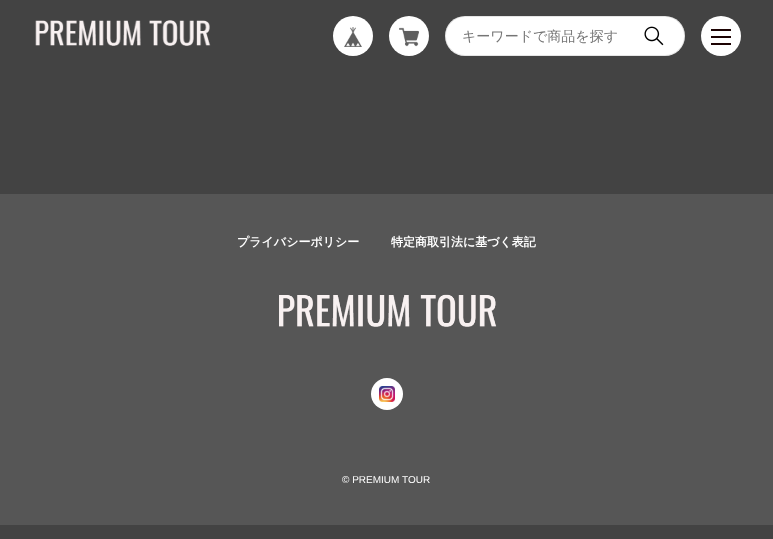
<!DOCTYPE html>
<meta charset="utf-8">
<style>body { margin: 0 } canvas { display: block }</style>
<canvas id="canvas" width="773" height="539"></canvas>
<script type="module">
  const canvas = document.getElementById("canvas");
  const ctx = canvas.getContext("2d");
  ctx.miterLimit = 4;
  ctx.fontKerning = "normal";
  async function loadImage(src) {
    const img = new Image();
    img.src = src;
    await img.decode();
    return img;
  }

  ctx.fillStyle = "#434343";
  ctx.fillRect(0, 0, 773, 539);
  ctx.drawImage(await loadImage("img1.png"), 35, 20, 176, 26);
  ctx.fillStyle = "#ffffff";
  ctx.beginPath();
  ctx.arc(353, 36, 20, 0, Math.PI * 2);
  ctx.fill();
  ctx.drawImage(await loadImage("img2.png"), 344, 27, 18, 20);
  ctx.beginPath();
  ctx.arc(409, 36, 20, 0, Math.PI * 2);
  ctx.fill();
  ctx.drawImage(await loadImage("img3.png"), 399, 27, 20, 20);
  ctx.beginPath();
  ctx.roundRect(445, 16, 240, 40, 20);
  ctx.fill();
  ctx.beginPath();
  ctx.roundRect(445.5, 16.5, 239, 39, 19.5);
  ctx.strokeStyle = "rgba(0, 0, 0, 0.1)";
  ctx.stroke();
  ctx.font = "500 14px WenQuanYi Zen Hei";
  ctx.fillStyle = "#757575";
  ctx.fillText("キーワードで商品を探す", 462, 41);
  ctx.drawImage(await loadImage("img4.png"), 644, 26, 20, 20);
  ctx.fillStyle = "#ffffff";
  ctx.beginPath();
  ctx.arc(721, 36, 20, 0, Math.PI * 2);
  ctx.fill();
  ctx.fillStyle = "#1d0303";
  ctx.fillRect(711, 36, 20, 2);
  ctx.fillRect(711, 29, 20, 2);
  ctx.fillRect(711, 43, 20, 2);
  ctx.fillStyle = "#565656";
  ctx.fillRect(0, 194, 773, 331);
  ctx.font = "bold 12px WenQuanYi Zen Hei";
  ctx.fillStyle = "#ffffff";
  ctx.fillText("プライバシーポリシー", 237, 246);
  ctx.fillText("特定商取引法に基づく表記", 391, 246);
  ctx.drawImage(await loadImage("img5.png"), 279, 294, 218, 33);
  ctx.beginPath();
  ctx.arc(387, 394, 16, 0, Math.PI * 2);
  ctx.fill();
  ctx.drawImage(await loadImage("img6.png"), 379, 386, 16, 16);
  ctx.font = "10px Liberation Sans";
  ctx.fillText("© PREMIUM TOUR", 342, 483);
</script>
